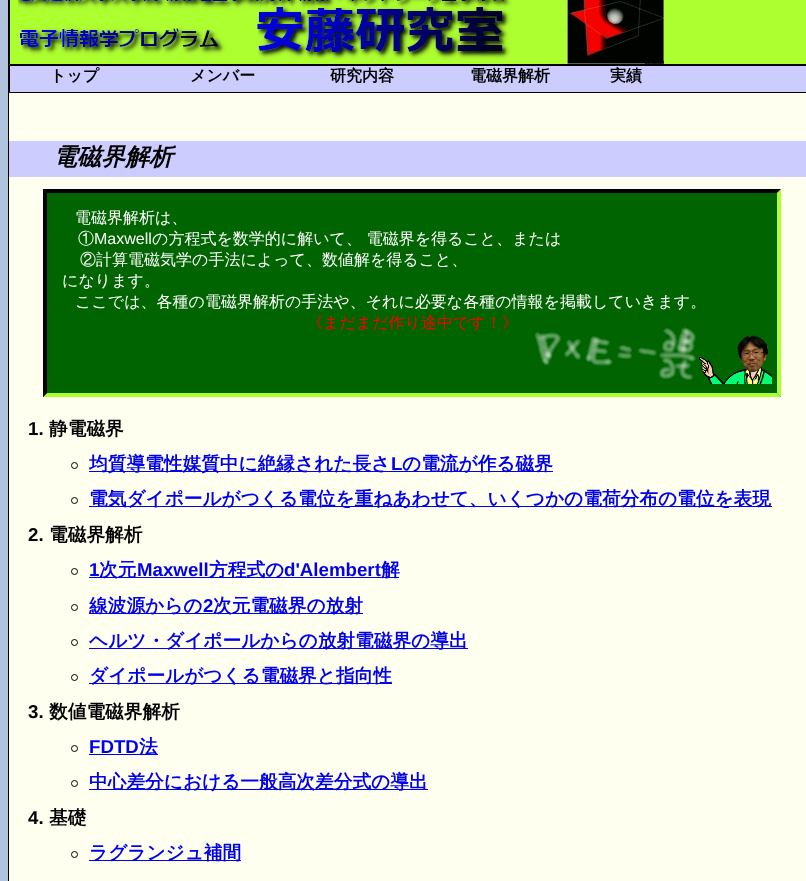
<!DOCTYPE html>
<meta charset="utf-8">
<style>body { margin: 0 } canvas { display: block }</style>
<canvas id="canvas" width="806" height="881"></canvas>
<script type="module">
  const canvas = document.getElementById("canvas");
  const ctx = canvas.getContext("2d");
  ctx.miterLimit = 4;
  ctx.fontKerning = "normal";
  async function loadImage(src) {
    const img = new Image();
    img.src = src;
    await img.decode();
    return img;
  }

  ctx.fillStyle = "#b0c4de";
  ctx.fillRect(0, 0, 806, 881);
  ctx.fillStyle = "#fffff0";
  ctx.fillRect(9, 93, 797, 788);
  ctx.strokeStyle = "#000000";
  ctx.strokeRect(8.5, -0.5, 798, 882);
  ctx.fillStyle = "#adff2f";
  ctx.beginPath();
  ctx.rect(9.5, -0.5, 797, 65);
  ctx.fill();
  ctx.stroke();
  ctx.drawImage(await loadImage("img1.png"), 18, 0, 494, 60);
  ctx.drawImage(await loadImage("img2.png"), 567, 0, 97, 64);
  ctx.fillStyle = "#ccccff";
  ctx.beginPath();
  ctx.rect(9.5, 65.5, 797, 27);
  ctx.fill();
  ctx.stroke();
  ctx.font = "bold 16px WenQuanYi Zen Hei";
  ctx.fillStyle = "#000000";
  ctx.fillText("トップ", 50, 81);
  ctx.fillText("メンバー", 190, 81);
  ctx.fillText("研究内容", 330, 81);
  ctx.fillText("電磁界解析", 470, 81);
  ctx.fillText("実績", 610, 81);
  ctx.fillStyle = "#ccccff";
  ctx.fillRect(9, 141, 797, 36);
  ctx.font = "italic bold 24px WenQuanYi Zen Hei";
  ctx.fillStyle = "#000000";
  ctx.fillText("電磁界解析", 53, 165);
  ctx.fillStyle = "#006400";
  ctx.fillRect(43, 189, 738, 208);
  ctx.fillStyle = "#000000";
  ctx.beginPath();
  ctx.moveTo(43, 189);
  ctx.lineTo(781, 189);
  ctx.lineTo(777, 193);
  ctx.lineTo(47, 193);
  ctx.closePath();
  ctx.fill();
  ctx.fillStyle = "#adff2f";
  ctx.beginPath();
  ctx.moveTo(781, 189);
  ctx.lineTo(781, 397);
  ctx.lineTo(777, 393);
  ctx.lineTo(777, 193);
  ctx.closePath();
  ctx.fill();
  ctx.beginPath();
  ctx.moveTo(781, 397);
  ctx.lineTo(43, 397);
  ctx.lineTo(47, 393);
  ctx.lineTo(777, 393);
  ctx.closePath();
  ctx.fill();
  ctx.fillStyle = "#000000";
  ctx.beginPath();
  ctx.moveTo(43, 397);
  ctx.lineTo(43, 189);
  ctx.lineTo(47, 193);
  ctx.lineTo(47, 393);
  ctx.closePath();
  ctx.fill();
  ctx.font = "500 16px WenQuanYi Zen Hei";
  ctx.fillStyle = "#ffffff";
  ctx.fillText("電磁界解析は、", 75, 223);
  ctx.fillText("①", 78, 244);
  ctx.font = "16px Liberation Sans";
  ctx.fillText("Maxwell", 94, 244);
  ctx.font = "500 16px WenQuanYi Zen Hei";
  ctx.fillText("の方程式を数学的に解いて、 電磁界を得ること、または", 152, 244);
  ctx.fillText("②計算電磁気学の手法によって、数値解を得ること、", 80, 265);
  ctx.fillText("になります。", 62, 286);
  ctx.fillText("ここでは、各種の電磁界解析の手法や、それに必要な各種の情報を掲載していきます。", 75, 307);
  ctx.fillStyle = "#ff0000";
  ctx.fillText("《まだまだ作り途中です！》", 307, 328);
  ctx.drawImage(await loadImage("img3.png"), 534, 327, 238, 57);
  ctx.font = "bold 18.7px Liberation Sans";
  ctx.fillStyle = "#000000";
  ctx.fillText("1.", 28, 435);
  ctx.font = "bold 18.7px WenQuanYi Zen Hei";
  ctx.fillText("静電磁界", 49, 435);
  ctx.beginPath();
  ctx.arc(74.5, 465.5, 3, 0, Math.PI * 2);
  ctx.stroke();
  ctx.fillStyle = "#0000ee";
  ctx.fillRect(89, 471, 464, 1);
  ctx.fillText("均質導電性媒質中に絶縁された長さ", 89, 470);
  ctx.font = "bold 18.7px Liberation Sans";
  ctx.fillText("L", 391, 470);
  ctx.font = "bold 18.7px WenQuanYi Zen Hei";
  ctx.fillText("の電流が作る磁界", 402, 470);
  ctx.beginPath();
  ctx.arc(74.5, 500.5, 3, 0, Math.PI * 2);
  ctx.stroke();
  ctx.fillRect(89, 506, 683, 1);
  ctx.fillText("電気ダイポールがつくる電位を重ねあわせて、いくつかの電荷分布の電位を表現", 89, 505);
  ctx.font = "bold 18.7px Liberation Sans";
  ctx.fillStyle = "#000000";
  ctx.fillText("2.", 28, 541);
  ctx.font = "bold 18.7px WenQuanYi Zen Hei";
  ctx.fillText("電磁界解析", 49, 541);
  ctx.beginPath();
  ctx.arc(74.5, 571.5, 3, 0, Math.PI * 2);
  ctx.stroke();
  ctx.font = "bold 18.7px Liberation Sans";
  ctx.fillStyle = "#0000ee";
  ctx.fillText("1", 89, 576);
  ctx.fillRect(89, 577, 310, 1);
  ctx.font = "bold 18.7px WenQuanYi Zen Hei";
  ctx.fillText("次元", 99, 576);
  ctx.font = "bold 18.7px Liberation Sans";
  ctx.fillText("Maxwell", 137, 576);
  ctx.font = "bold 18.7px WenQuanYi Zen Hei";
  ctx.fillText("方程式の", 209, 576);
  ctx.font = "bold 18.7px Liberation Sans";
  ctx.fillText("d'Alembert", 284, 576);
  ctx.font = "bold 18.7px WenQuanYi Zen Hei";
  ctx.fillText("解", 381, 576);
  ctx.beginPath();
  ctx.arc(74.5, 607.5, 3, 0, Math.PI * 2);
  ctx.stroke();
  ctx.fillRect(89, 613, 274, 1);
  ctx.fillText("線波源からの", 89, 612);
  ctx.font = "bold 18.7px Liberation Sans";
  ctx.fillText("2", 203, 612);
  ctx.font = "bold 18.7px WenQuanYi Zen Hei";
  ctx.fillText("次元電磁界の放射", 213, 612);
  ctx.beginPath();
  ctx.arc(74.5, 642.5, 3, 0, Math.PI * 2);
  ctx.stroke();
  ctx.fillRect(89, 648, 379, 1);
  ctx.fillText("ヘルツ・ダイポールからの放射電磁界の導出", 89, 647);
  ctx.beginPath();
  ctx.arc(74.5, 677.5, 3, 0, Math.PI * 2);
  ctx.stroke();
  ctx.fillRect(89, 683, 303, 1);
  ctx.fillText("ダイポールがつくる電磁界と指向性", 89, 682);
  ctx.font = "bold 18.7px Liberation Sans";
  ctx.fillStyle = "#000000";
  ctx.fillText("3.", 28, 718);
  ctx.font = "bold 18.7px WenQuanYi Zen Hei";
  ctx.fillText("数値電磁界解析", 49, 718);
  ctx.beginPath();
  ctx.arc(74.5, 748.5, 3, 0, Math.PI * 2);
  ctx.stroke();
  ctx.font = "bold 18.7px Liberation Sans";
  ctx.fillStyle = "#0000ee";
  ctx.fillText("FDTD", 89, 753);
  ctx.fillRect(89, 754, 69, 1);
  ctx.font = "bold 18.7px WenQuanYi Zen Hei";
  ctx.fillText("法", 139, 753);
  ctx.beginPath();
  ctx.arc(74.5, 783.5, 3, 0, Math.PI * 2);
  ctx.stroke();
  ctx.fillRect(89, 789, 339, 1);
  ctx.fillText("中心差分における一般高次差分式の導出", 89, 788);
  ctx.font = "bold 18.7px Liberation Sans";
  ctx.fillStyle = "#000000";
  ctx.fillText("4.", 28, 824);
  ctx.font = "bold 18.7px WenQuanYi Zen Hei";
  ctx.fillText("基礎", 49, 824);
  ctx.beginPath();
  ctx.arc(74.5, 854.5, 3, 0, Math.PI * 2);
  ctx.stroke();
  ctx.fillStyle = "#0000ee";
  ctx.fillRect(89, 860, 152, 1);
  ctx.fillText("ラグランジュ補間", 89, 859);
</script>
